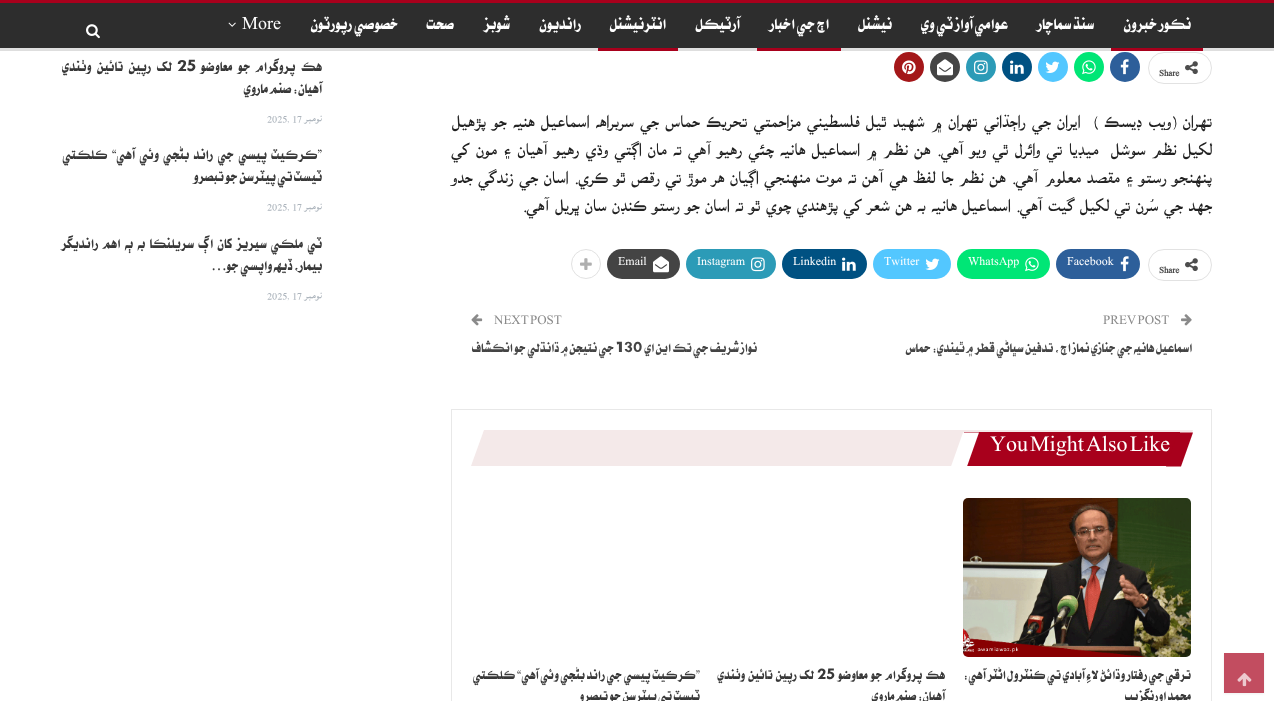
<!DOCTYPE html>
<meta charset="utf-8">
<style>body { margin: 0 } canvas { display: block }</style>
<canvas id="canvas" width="1274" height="701"></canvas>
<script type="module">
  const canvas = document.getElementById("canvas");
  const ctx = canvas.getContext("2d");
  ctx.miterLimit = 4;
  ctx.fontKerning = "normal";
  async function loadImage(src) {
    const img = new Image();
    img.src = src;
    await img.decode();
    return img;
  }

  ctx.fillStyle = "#ffffff";
  ctx.fillRect(0, 0, 1274, 701);
  ctx.fillStyle = "#2d2d2d";
  ctx.fillRect(0, 3, 1274, 45);
  ctx.fillStyle = "#a8001c";
  ctx.fillRect(0, 0, 1274, 3);
  ctx.fillStyle = "#dedede";
  ctx.fillRect(0, 48, 1274, 3);
  ctx.direction = "rtl";
  ctx.font = "bold 18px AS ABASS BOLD";
  ctx.fillStyle = "#ffffff";
  ctx.fillText("نڪور خبرون", 1191, 29);
  ctx.fillStyle = "#a8001c";
  ctx.fillRect(1111, 48, 92, 3);
  ctx.fillStyle = "#ffffff";
  ctx.fillText("سنڌ سماچار", 1094, 29);
  ctx.fillText("عوامي آواز ٽي وي", 1008, 29);
  ctx.fillText("نيشنل", 892, 29);
  ctx.fillText("اڄ جي اخبار", 829, 29);
  ctx.fillStyle = "#a8001c";
  ctx.fillRect(757, 48, 84, 3);
  ctx.fillStyle = "#ffffff";
  ctx.fillText("آرٽيڪل", 740, 29);
  ctx.fillText("انٽرنيشنل", 666, 29);
  ctx.fillStyle = "#a8001c";
  ctx.fillRect(598, 48, 80, 3);
  ctx.fillStyle = "#ffffff";
  ctx.fillText("رانديون", 581, 29);
  ctx.fillText("شوبز", 510, 29);
  ctx.fillText("صحت", 454, 29);
  ctx.fillText("خصوصي رپورٽون", 398, 29);
  ctx.direction = "ltr";
  ctx.fillText("More", 242, 29);
  ctx.drawImage(await loadImage("img1.png"), 228, 22, 8, 5);
  ctx.drawImage(await loadImage("img2.png"), 86, 24, 14, 15);
  ctx.fillStyle = "rgba(77, 77, 77, 0.09)";
  ctx.filter = "blur(1px)";
  ctx.beginPath();
  ctx.rect(1224, 654, 40, 40);
  ctx.fill();
  ctx.filter = "none";
  ctx.fillStyle = "#c24d60";
  ctx.fillRect(1224, 653, 40, 40);
  ctx.drawImage(await loadImage("img3.png"), 1237, 673, 15, 14);
  ctx.beginPath();
  ctx.roundRect(1148.5, 52.5, 63, 31, 15.5);
  ctx.strokeStyle = "#e2e2e2";
  ctx.stroke();
  ctx.drawImage(await loadImage("img4.png"), 1185, 61, 13, 14);
  ctx.font = "bold 12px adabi";
  ctx.fillStyle = "#4d4d4d";
  ctx.fillText("Share", 1159, 76);
  ctx.fillStyle = "#2d5f9a";
  ctx.beginPath();
  ctx.arc(1125, 67, 15, 0, Math.PI * 2);
  ctx.fill();
  ctx.drawImage(await loadImage("img5.png"), 1120, 59, 9, 16);
  ctx.fillStyle = "#00e676";
  ctx.beginPath();
  ctx.arc(1089, 67, 15, 0, Math.PI * 2);
  ctx.fill();
  ctx.drawImage(await loadImage("img6.png"), 1082, 60, 14, 15);
  ctx.fillStyle = "#53c7ff";
  ctx.beginPath();
  ctx.arc(1053, 67, 15, 0, Math.PI * 2);
  ctx.fill();
  ctx.drawImage(await loadImage("img7.png"), 1045, 61, 15, 12);
  ctx.fillStyle = "#005182";
  ctx.beginPath();
  ctx.arc(1017, 67, 15, 0, Math.PI * 2);
  ctx.fill();
  ctx.drawImage(await loadImage("img8.png"), 1010, 60, 14, 14);
  ctx.fillStyle = "#2c9bb7";
  ctx.beginPath();
  ctx.arc(981, 67, 15, 0, Math.PI * 2);
  ctx.fill();
  ctx.drawImage(await loadImage("img9.png"), 974, 60, 14, 15);
  ctx.fillStyle = "#444444";
  ctx.beginPath();
  ctx.arc(945, 67, 15, 0, Math.PI * 2);
  ctx.fill();
  ctx.drawImage(await loadImage("img10.png"), 937, 59, 16, 17);
  ctx.fillStyle = "#a41719";
  ctx.beginPath();
  ctx.arc(909, 67, 15, 0, Math.PI * 2);
  ctx.fill();
  ctx.drawImage(await loadImage("img11.png"), 902, 60, 14, 15);
  ctx.wordSpacing = "0.9px";
  ctx.direction = "rtl";
  ctx.font = "20px adabi";
  ctx.fillStyle = "#222222";
  ctx.fillText("تهران (ويب ڊيسڪ )  ايران جي راڄڌاني تهران ۾ شهيد ٿيل فلسطيني مزاحمتي تحريڪ حماس جي سربراهه اسماعيل هنيه جو پڙهيل", 1212, 128);
  ctx.wordSpacing = "0.8px";
  ctx.fillText("لکيل نظم سوشل  ميڊيا تي وائرل ٿي ويو آهي. هن نظم ۾ اسماعيل هانيه چئي رهيو آهي ته مان اڳتي وڌي رهيو آهيان ۽ مون کي", 1212, 156);
  ctx.wordSpacing = "0.3px";
  ctx.fillText("پنهنجو رستو ۽ مقصد معلوم آهي. هن نظم جا لفظ هي آهن ته موت منهنجي اڳيان هر موڙ تي رقص ٿو ڪري. اسان جي زندگي جدو", 1212, 184);
  ctx.wordSpacing = "0px";
  ctx.fillText("جهد جي سُرن تي لکيل گيت آهي. اسماعيل هانيه به هن شعر کي پڙهندي چوي ٿو ته اسان جو رستو ڪنڊن سان ڀريل آهي.", 1212, 212);
  ctx.fillStyle = "#2d5f9a";
  ctx.beginPath();
  ctx.roundRect(1056, 249, 84, 30, 15);
  ctx.fill();
  ctx.drawImage(await loadImage("img5.png"), 1120, 256, 9, 16);
  ctx.direction = "ltr";
  ctx.font = "bold 12px AS ABASS BOLD";
  ctx.fillStyle = "#ffffff";
  ctx.fillText("Facebook", 1067, 265);
  ctx.fillStyle = "#00e676";
  ctx.beginPath();
  ctx.roundRect(957, 249, 93, 30, 15);
  ctx.fill();
  ctx.drawImage(await loadImage("img6.png"), 1025, 257, 14, 15);
  ctx.fillStyle = "#ffffff";
  ctx.fillText("WhatsApp", 968, 265);
  ctx.fillStyle = "#53c7ff";
  ctx.beginPath();
  ctx.roundRect(873, 249, 78, 30, 15);
  ctx.fill();
  ctx.drawImage(await loadImage("img7.png"), 925, 258, 15, 12);
  ctx.fillStyle = "#ffffff";
  ctx.fillText("Twitter", 884, 265);
  ctx.fillStyle = "#005182";
  ctx.beginPath();
  ctx.roundRect(782, 249, 85, 30, 15);
  ctx.fill();
  ctx.drawImage(await loadImage("img8.png"), 842, 257, 14, 14);
  ctx.fillStyle = "#ffffff";
  ctx.fillText("Linkedin", 793, 265);
  ctx.fillStyle = "#2c9bb7";
  ctx.beginPath();
  ctx.roundRect(686, 249, 90, 30, 15);
  ctx.fill();
  ctx.drawImage(await loadImage("img9.png"), 751, 257, 14, 15);
  ctx.fillStyle = "#ffffff";
  ctx.fillText("Instagram", 697, 265);
  ctx.fillStyle = "#444444";
  ctx.beginPath();
  ctx.roundRect(607, 249, 73, 30, 15);
  ctx.fill();
  ctx.drawImage(await loadImage("img10.png"), 653, 256, 16, 17);
  ctx.fillStyle = "#ffffff";
  ctx.fillText("Email", 618, 265);
  ctx.beginPath();
  ctx.arc(586, 264, 14.5, 0, Math.PI * 2);
  ctx.stroke();
  ctx.drawImage(await loadImage("img12.png"), 580, 258, 12, 12);
  ctx.beginPath();
  ctx.roundRect(1148.5, 249.5, 63, 31, 15.5);
  ctx.stroke();
  ctx.drawImage(await loadImage("img4.png"), 1185, 258, 13, 14);
  ctx.font = "bold 12px adabi";
  ctx.fillStyle = "#4d4d4d";
  ctx.fillText("Share", 1159, 273);
  ctx.drawImage(await loadImage("img13.png"), 1181, 314, 11, 12);
  ctx.font = "bold 13px AS ABASS BOLD";
  ctx.fillStyle = "#8a8a8a";
  ctx.fillText("PREV POST", 1103, 324);
  ctx.direction = "rtl";
  ctx.font = "bold 15px AS ABASS BOLD";
  ctx.fillStyle = "#444444";
  ctx.fillText("اسماعيل هانيه جي جنازي نماز اڄ ، تدفين سڀاڻي قطر ۾ ٿيندي: حماس", 1192, 352);
  ctx.direction = "ltr";
  ctx.font = "bold 13px AS ABASS BOLD";
  ctx.fillStyle = "#8a8a8a";
  ctx.fillText("NEXT POST", 494, 324);
  ctx.drawImage(await loadImage("img14.png"), 471, 314, 12, 12);
  ctx.direction = "rtl";
  ctx.font = "bold 15px AS ABASS BOLD";
  ctx.fillStyle = "#444444";
  ctx.fillText("نواز شريف جي تڪ اين اي", 757, 352);
  ctx.direction = "ltr";
  ctx.fillText("130", 615, 352);
  ctx.direction = "rtl";
  ctx.fillText("جي نتيجن ۾ ڌانڌلي جو انڪشاف", 614, 352);
  ctx.strokeStyle = "#e8e8e8";
  ctx.strokeRect(451.5, 409.5, 760, 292);
  ctx.fillStyle = "#f4e9e9";
  ctx.beginPath();
  ctx.moveTo(484, 430);
  ctx.lineTo(1193, 430);
  ctx.lineTo(1179, 466);
  ctx.lineTo(471, 466);
  ctx.closePath();
  ctx.fill();
  ctx.fillStyle = "#a8001c";
  ctx.fillRect(964, 432, 216, 34);
  ctx.direction = "ltr";
  ctx.font = "bold 22px AS ABASS BOLD";
  ctx.fillStyle = "#ffffff";
  ctx.fillText("You Might Also Like", 990, 451);
  ctx.fillStyle = "#a8001c";
  ctx.beginPath();
  ctx.moveTo(1178, 432.5);
  ctx.lineTo(1193, 432.5);
  ctx.lineTo(1181, 466.5);
  ctx.lineTo(1166, 466.5);
  ctx.closePath();
  ctx.fill();
  ctx.fillStyle = "#ffffff";
  ctx.beginPath();
  ctx.moveTo(963, 432.5);
  ctx.lineTo(979, 432.5);
  ctx.lineTo(967, 466.5);
  ctx.lineTo(951, 466.5);
  ctx.closePath();
  ctx.fill();
  ctx.drawImage(await loadImage("img15.png"), 963, 498, 228, 159);
  ctx.direction = "rtl";
  ctx.font = "bold 15px AS ABASS BOLD";
  ctx.fillStyle = "#383838";
  ctx.fillText("ترقي جي رفتار وڌائڻ لاءِ آبادي تي ڪنٽرول اڻٽر آهي:", 1191, 679);
  ctx.fillText("محمد اورنگزيب", 1191, 700);
  ctx.wordSpacing = "1.5px";
  ctx.fillText("هڪ پروگرام جو معاوضو", 945, 679);
  ctx.wordSpacing = "0px";
  ctx.direction = "ltr";
  ctx.fillText("25", 817, 679);
  ctx.wordSpacing = "1.5px";
  ctx.direction = "rtl";
  ctx.fillText("لک رپين تائين وٺندي", 814, 679);
  ctx.wordSpacing = "0px";
  ctx.fillText("آهيان: صنم ماروي", 945, 700);
  ctx.wordSpacing = "0.25px";
  ctx.fillText("”ڪرڪيٽ پيسي جي راند بڻجي وئي آهي“ ڪلڪتي", 700, 679);
  ctx.wordSpacing = "0px";
  ctx.fillText("ٽيسٽ تي پيٽرسن جو تبصرو", 700, 700);
  ctx.wordSpacing = "4px";
  ctx.font = "bold 16px AS ABASS BOLD";
  ctx.fillText("هڪ پروگرام جو معاوضو", 322, 71);
  ctx.wordSpacing = "0px";
  ctx.direction = "ltr";
  ctx.fillText("25", 177, 71);
  ctx.wordSpacing = "4px";
  ctx.direction = "rtl";
  ctx.fillText("لک رپين تائين وٺندي", 172, 71);
  ctx.wordSpacing = "0px";
  ctx.fillText("آهيان: صنم ماروي", 322, 93);
  ctx.font = "12px adabi";
  ctx.fillStyle = "#adb5bd";
  ctx.fillText("نومبر", 322, 122);
  ctx.direction = "ltr";
  ctx.fillText("2025, 17", 267, 122);
  ctx.wordSpacing = "2.75px";
  ctx.direction = "rtl";
  ctx.font = "bold 16px AS ABASS BOLD";
  ctx.fillStyle = "#383838";
  ctx.fillText("”ڪرڪيٽ پيسي جي راند بڻجي وئي آهي“ ڪلڪتي", 322, 159);
  ctx.wordSpacing = "0px";
  ctx.fillText("ٽيسٽ تي پيٽرسن جو تبصرو", 322, 181);
  ctx.font = "12px adabi";
  ctx.fillStyle = "#adb5bd";
  ctx.fillText("نومبر", 322, 210);
  ctx.direction = "ltr";
  ctx.fillText("2025, 17", 267, 210);
  ctx.wordSpacing = "2.75px";
  ctx.direction = "rtl";
  ctx.font = "bold 16px AS ABASS BOLD";
  ctx.fillStyle = "#383838";
  ctx.fillText("ٽي ملڪي سيريز کان اڳ سريلنڪا به ٻه اهم رانديگر", 322, 248);
  ctx.wordSpacing = "0px";
  ctx.fillText("بيمار، ڏيهه واپسي جو", 322, 270);
  ctx.font = "16px Liberation Serif";
  ctx.fillText("…", 227, 270);
  ctx.font = "12px adabi";
  ctx.fillStyle = "#adb5bd";
  ctx.fillText("نومبر", 322, 299);
  ctx.direction = "ltr";
  ctx.fillText("2025, 17", 267, 299);
</script>
